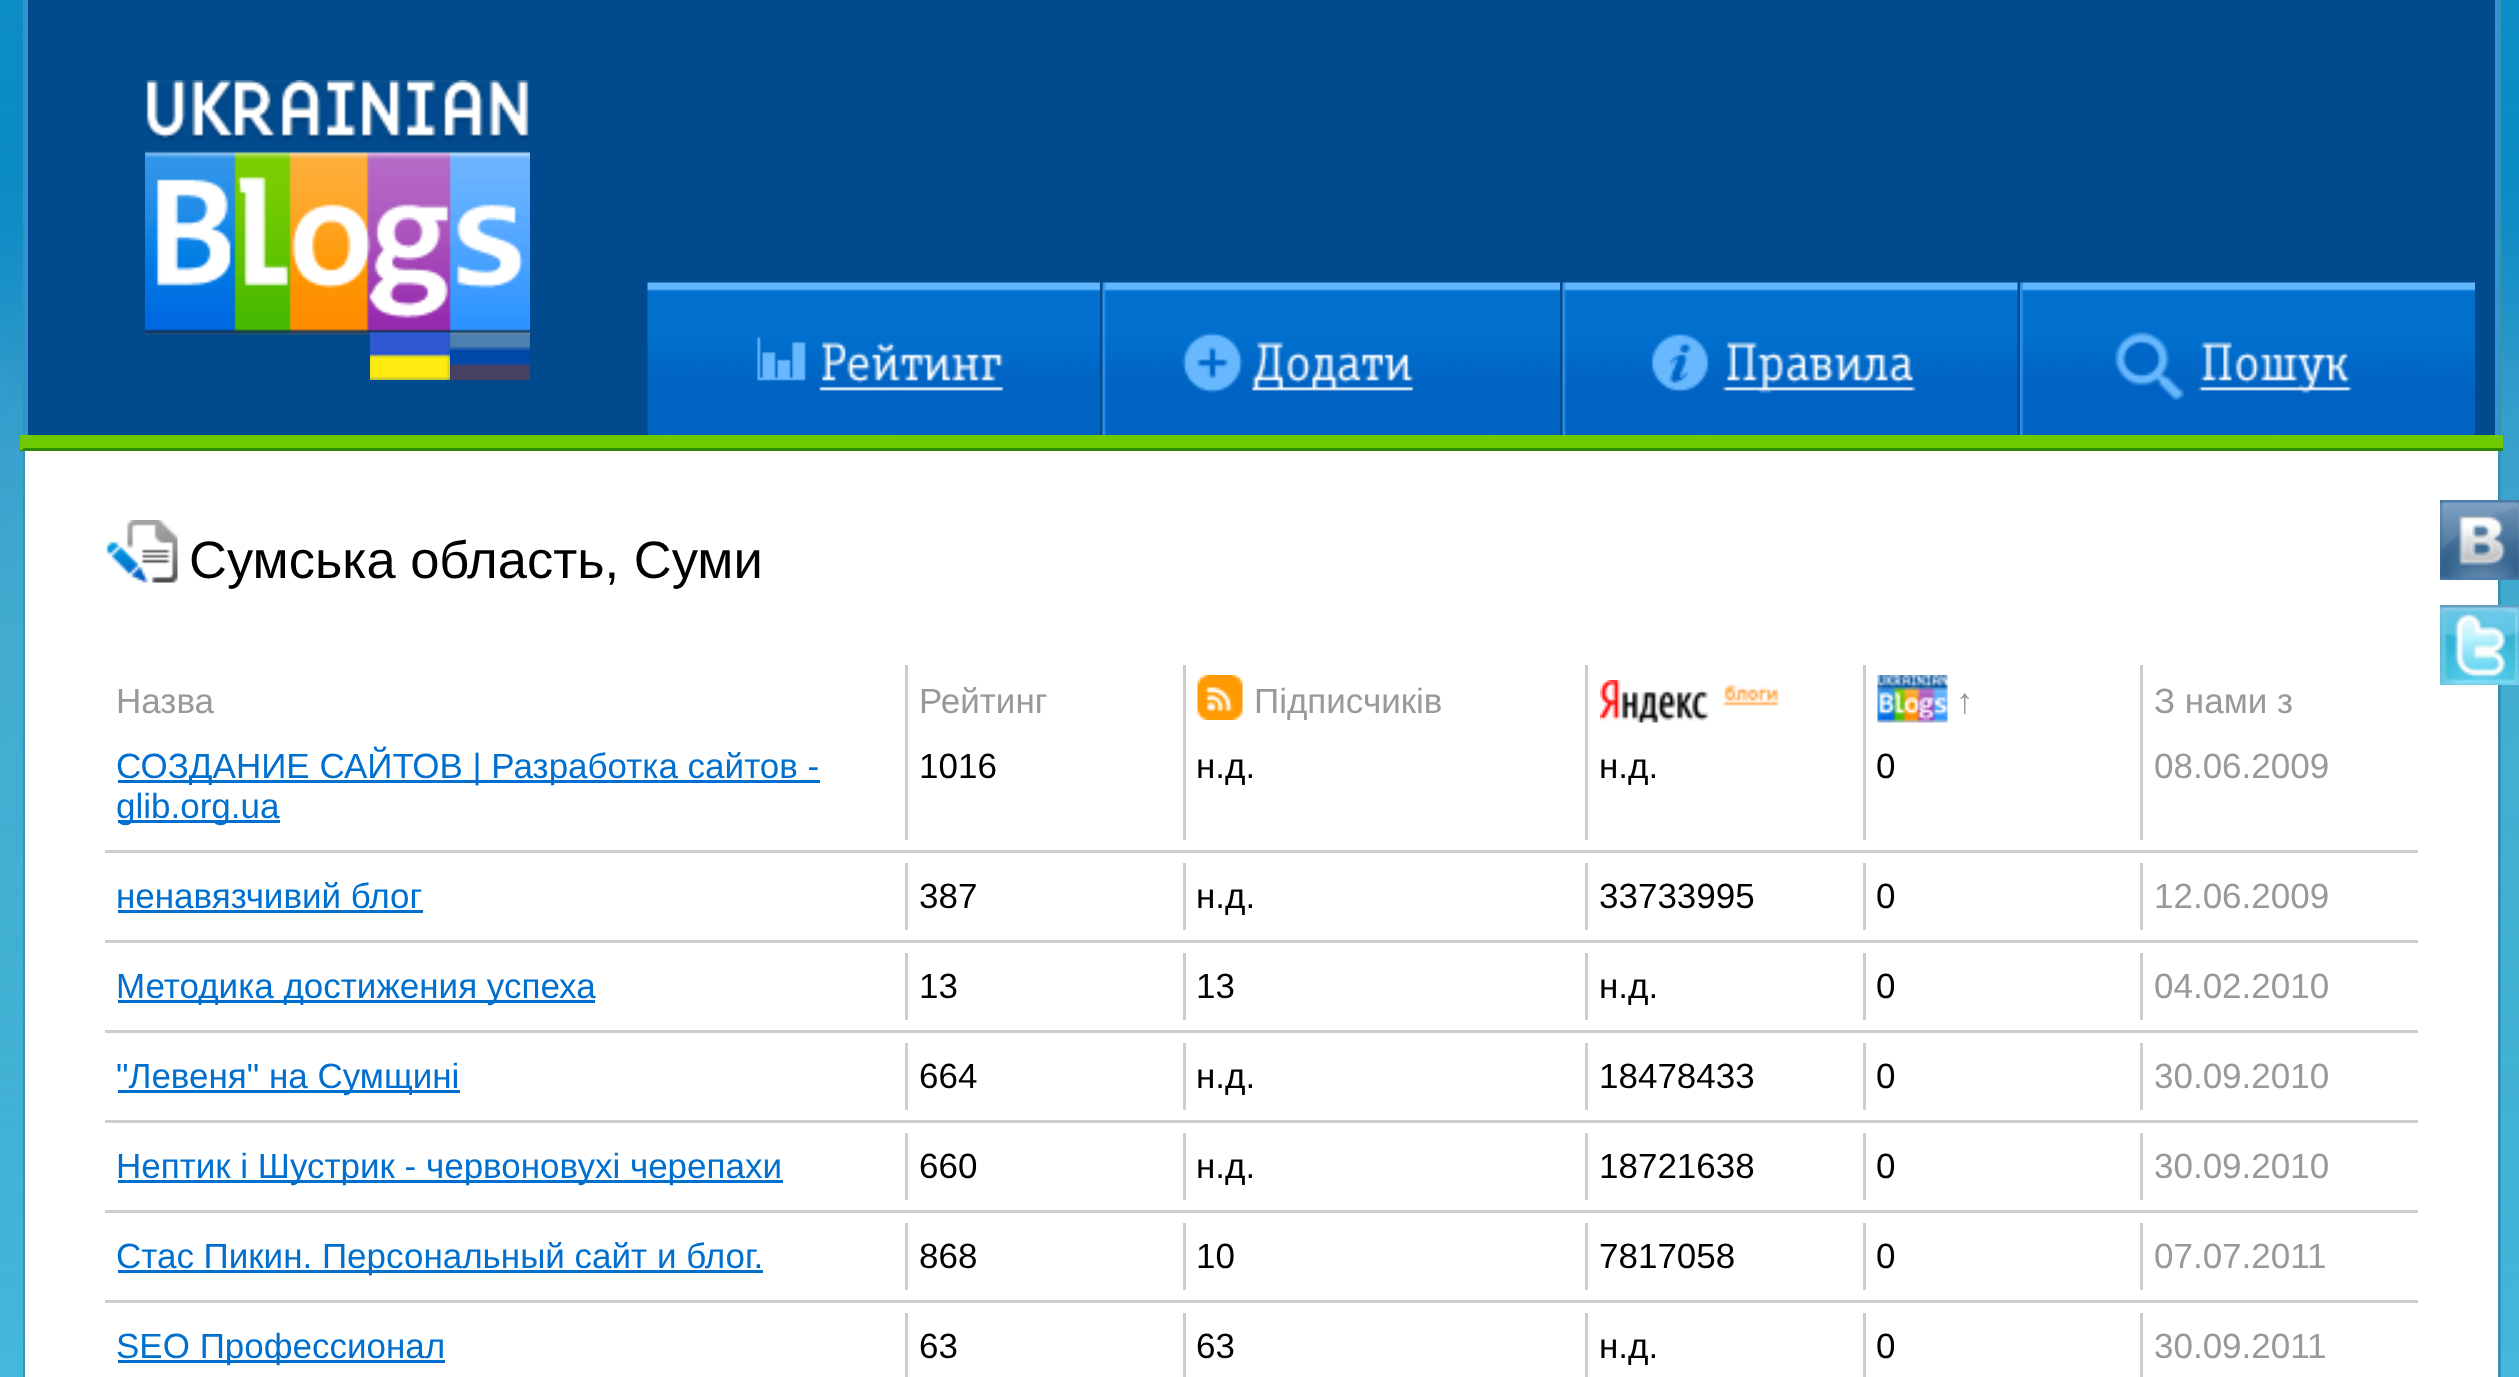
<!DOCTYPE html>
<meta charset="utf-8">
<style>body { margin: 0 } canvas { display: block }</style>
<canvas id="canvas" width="2519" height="1377"></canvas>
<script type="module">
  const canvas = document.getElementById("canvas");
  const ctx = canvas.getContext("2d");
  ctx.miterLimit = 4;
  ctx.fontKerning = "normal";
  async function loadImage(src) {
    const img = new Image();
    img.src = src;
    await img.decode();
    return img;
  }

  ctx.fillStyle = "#ffffff";
  ctx.fillRect(0, 0, 2519, 1377);
  ctx.drawImage(await loadImage("img1.png"), 0, 0, 2519, 1377);
  ctx.fillStyle = "#3892b2";
  ctx.fillRect(2498, 0, 3, 1377);
  ctx.fillRect(23, 0, 2, 1377);
  ctx.fillStyle = "#014a8d";
  ctx.fillRect(28, 0, 2467, 435);
  ctx.fillStyle = "#3292e8";
  ctx.fillRect(2495, 0, 3, 435);
  ctx.fillRect(25, 0, 3, 435);
  ctx.drawImage(await loadImage("img2.png"), 145, 80, 385, 255);
  ctx.drawImage(await loadImage("img3.png"), 370, 332, 80, 48);
  ctx.drawImage(await loadImage("img4.png"), 450, 332, 80, 48);
  ctx.drawImage(await loadImage("img5.png"), 647, 282, 453, 153);
  ctx.drawImage(await loadImage("img6.png"), 1102, 282, 458, 153);
  ctx.drawImage(await loadImage("img7.png"), 1562, 282, 456, 153);
  ctx.drawImage(await loadImage("img8.png"), 2020, 282, 455, 153);
  ctx.fillStyle = "#6ec902";
  ctx.fillRect(23, 435, 2480, 13);
  ctx.fillStyle = "#2d8b03";
  ctx.fillRect(20, 448, 2483, 3);
  ctx.fillStyle = "#6ec902";
  ctx.fillRect(20, 435, 3, 15);
  ctx.fillStyle = "#ffffff";
  ctx.fillRect(25, 451, 2473, 926);
  ctx.drawImage(await loadImage("img9.png"), 105, 520, 73, 63);
  ctx.font = "52.5px Liberation Sans";
  ctx.fillStyle = "#000000";
  ctx.fillText("Сумська область, Суми", 189, 578);
  ctx.font = "35px Liberation Sans";
  ctx.fillStyle = "#999999";
  ctx.fillText("Назва", 116, 713);
  ctx.fillText("Рейтинг", 919, 713);
  ctx.drawImage(await loadImage("img10.png"), 1197, 675, 46, 45);
  ctx.fillText("Підписчиків", 1254, 713);
  ctx.drawImage(await loadImage("img11.png"), 1600, 680, 180, 43);
  ctx.drawImage(await loadImage("img12.png"), 1877, 675, 71, 48);
  ctx.fillText("↑", 1956, 713);
  ctx.fillText("З нами з", 2154, 713);
  ctx.fillStyle = "#cdcdcd";
  ctx.fillRect(905, 665, 3, 175);
  ctx.fillStyle = "#006fce";
  ctx.fillRect(118, 780, 702, 3);
  ctx.fillText("СОЗДАНИЕ САЙТОВ | Разработка сайтов -", 116, 778);
  ctx.fillRect(118, 820, 162, 3);
  ctx.fillText("glib.org.ua", 116, 818);
  ctx.fillStyle = "#cdcdcd";
  ctx.fillRect(1183, 665, 3, 175);
  ctx.fillStyle = "#000000";
  ctx.fillText("1016", 919, 778);
  ctx.fillStyle = "#cdcdcd";
  ctx.fillRect(1585, 665, 3, 175);
  ctx.fillStyle = "#000000";
  ctx.fillText("н.д.", 1196, 778);
  ctx.fillStyle = "#cdcdcd";
  ctx.fillRect(1863, 665, 3, 175);
  ctx.fillStyle = "#000000";
  ctx.fillText("н.д.", 1599, 778);
  ctx.fillStyle = "#cdcdcd";
  ctx.fillRect(2140, 665, 3, 175);
  ctx.fillStyle = "#000000";
  ctx.fillText("0", 1876, 778);
  ctx.fillStyle = "#999999";
  ctx.fillText("08.06.2009", 2154, 778);
  ctx.fillStyle = "#cdcdcd";
  ctx.fillRect(105, 850, 2313, 3);
  ctx.fillRect(905, 863, 3, 67);
  ctx.fillStyle = "#006fce";
  ctx.fillText("ненавязчивий блог", 116, 908);
  ctx.fillRect(118, 910, 305, 3);
  ctx.fillStyle = "#cdcdcd";
  ctx.fillRect(1183, 863, 3, 67);
  ctx.fillStyle = "#000000";
  ctx.fillText("387", 919, 908);
  ctx.fillStyle = "#cdcdcd";
  ctx.fillRect(1585, 863, 3, 67);
  ctx.fillStyle = "#000000";
  ctx.fillText("н.д.", 1196, 908);
  ctx.fillStyle = "#cdcdcd";
  ctx.fillRect(1863, 863, 3, 67);
  ctx.fillStyle = "#000000";
  ctx.fillText("33733995", 1599, 908);
  ctx.fillStyle = "#cdcdcd";
  ctx.fillRect(2140, 863, 3, 67);
  ctx.fillStyle = "#000000";
  ctx.fillText("0", 1876, 908);
  ctx.fillStyle = "#999999";
  ctx.fillText("12.06.2009", 2154, 908);
  ctx.fillStyle = "#cdcdcd";
  ctx.fillRect(105, 940, 2313, 3);
  ctx.fillRect(905, 953, 3, 67);
  ctx.fillStyle = "#006fce";
  ctx.fillRect(118, 1000, 477, 3);
  ctx.fillText("Методика достижения успеха", 116, 998);
  ctx.fillStyle = "#cdcdcd";
  ctx.fillRect(1183, 953, 3, 67);
  ctx.fillStyle = "#000000";
  ctx.fillText("13", 919, 998);
  ctx.fillStyle = "#cdcdcd";
  ctx.fillRect(1585, 953, 3, 67);
  ctx.fillStyle = "#000000";
  ctx.fillText("13", 1196, 998);
  ctx.fillStyle = "#cdcdcd";
  ctx.fillRect(1863, 953, 3, 67);
  ctx.fillStyle = "#000000";
  ctx.fillText("н.д.", 1599, 998);
  ctx.fillStyle = "#cdcdcd";
  ctx.fillRect(2140, 953, 3, 67);
  ctx.fillStyle = "#000000";
  ctx.fillText("0", 1876, 998);
  ctx.fillStyle = "#999999";
  ctx.fillText("04.02.2010", 2154, 998);
  ctx.fillStyle = "#cdcdcd";
  ctx.fillRect(105, 1030, 2313, 3);
  ctx.fillRect(905, 1043, 3, 67);
  ctx.fillStyle = "#006fce";
  ctx.fillRect(118, 1090, 342, 3);
  ctx.fillText("\"Левеня\" на Сумщині", 116, 1088);
  ctx.fillStyle = "#cdcdcd";
  ctx.fillRect(1183, 1043, 3, 67);
  ctx.fillStyle = "#000000";
  ctx.fillText("664", 919, 1088);
  ctx.fillStyle = "#cdcdcd";
  ctx.fillRect(1585, 1043, 3, 67);
  ctx.fillStyle = "#000000";
  ctx.fillText("н.д.", 1196, 1088);
  ctx.fillStyle = "#cdcdcd";
  ctx.fillRect(1863, 1043, 3, 67);
  ctx.fillStyle = "#000000";
  ctx.fillText("18478433", 1599, 1088);
  ctx.fillStyle = "#cdcdcd";
  ctx.fillRect(2140, 1043, 3, 67);
  ctx.fillStyle = "#000000";
  ctx.fillText("0", 1876, 1088);
  ctx.fillStyle = "#999999";
  ctx.fillText("30.09.2010", 2154, 1088);
  ctx.fillStyle = "#cdcdcd";
  ctx.fillRect(105, 1120, 2313, 3);
  ctx.fillRect(905, 1133, 3, 67);
  ctx.fillStyle = "#006fce";
  ctx.fillRect(118, 1180, 665, 3);
  ctx.fillText("Нептик і Шустрик - червоновухі черепахи", 116, 1178);
  ctx.fillStyle = "#cdcdcd";
  ctx.fillRect(1183, 1133, 3, 67);
  ctx.fillStyle = "#000000";
  ctx.fillText("660", 919, 1178);
  ctx.fillStyle = "#cdcdcd";
  ctx.fillRect(1585, 1133, 3, 67);
  ctx.fillStyle = "#000000";
  ctx.fillText("н.д.", 1196, 1178);
  ctx.fillStyle = "#cdcdcd";
  ctx.fillRect(1863, 1133, 3, 67);
  ctx.fillStyle = "#000000";
  ctx.fillText("18721638", 1599, 1178);
  ctx.fillStyle = "#cdcdcd";
  ctx.fillRect(2140, 1133, 3, 67);
  ctx.fillStyle = "#000000";
  ctx.fillText("0", 1876, 1178);
  ctx.fillStyle = "#999999";
  ctx.fillText("30.09.2010", 2154, 1178);
  ctx.fillStyle = "#cdcdcd";
  ctx.fillRect(105, 1210, 2313, 3);
  ctx.fillRect(905, 1223, 3, 67);
  ctx.fillStyle = "#006fce";
  ctx.fillRect(118, 1270, 645, 3);
  ctx.fillText("Стас Пикин. Персональный сайт и блог.", 116, 1268);
  ctx.fillStyle = "#cdcdcd";
  ctx.fillRect(1183, 1223, 3, 67);
  ctx.fillStyle = "#000000";
  ctx.fillText("868", 919, 1268);
  ctx.fillStyle = "#cdcdcd";
  ctx.fillRect(1585, 1223, 3, 67);
  ctx.fillStyle = "#000000";
  ctx.fillText("10", 1196, 1268);
  ctx.fillStyle = "#cdcdcd";
  ctx.fillRect(1863, 1223, 3, 67);
  ctx.fillStyle = "#000000";
  ctx.fillText("7817058", 1599, 1268);
  ctx.fillStyle = "#cdcdcd";
  ctx.fillRect(2140, 1223, 3, 67);
  ctx.fillStyle = "#000000";
  ctx.fillText("0", 1876, 1268);
  ctx.fillStyle = "#999999";
  ctx.fillText("07.07.2011", 2154, 1268);
  ctx.fillStyle = "#cdcdcd";
  ctx.fillRect(105, 1300, 2313, 3);
  ctx.fillRect(905, 1313, 3, 64);
  ctx.fillStyle = "#006fce";
  ctx.fillRect(118, 1360, 327, 3);
  ctx.fillText("SEO Профессионал", 116, 1358);
  ctx.fillStyle = "#cdcdcd";
  ctx.fillRect(1183, 1313, 3, 64);
  ctx.fillStyle = "#000000";
  ctx.fillText("63", 919, 1358);
  ctx.fillStyle = "#cdcdcd";
  ctx.fillRect(1585, 1313, 3, 64);
  ctx.fillStyle = "#000000";
  ctx.fillText("63", 1196, 1358);
  ctx.fillStyle = "#cdcdcd";
  ctx.fillRect(1863, 1313, 3, 64);
  ctx.fillStyle = "#000000";
  ctx.fillText("н.д.", 1599, 1358);
  ctx.fillStyle = "#cdcdcd";
  ctx.fillRect(2140, 1313, 3, 64);
  ctx.fillStyle = "#000000";
  ctx.fillText("0", 1876, 1358);
  ctx.fillStyle = "#999999";
  ctx.fillText("30.09.2011", 2154, 1358);
  ctx.drawImage(await loadImage("img13.png"), 2440, 500, 79, 80);
  ctx.drawImage(await loadImage("img14.png"), 2440, 605, 79, 80);
</script>
